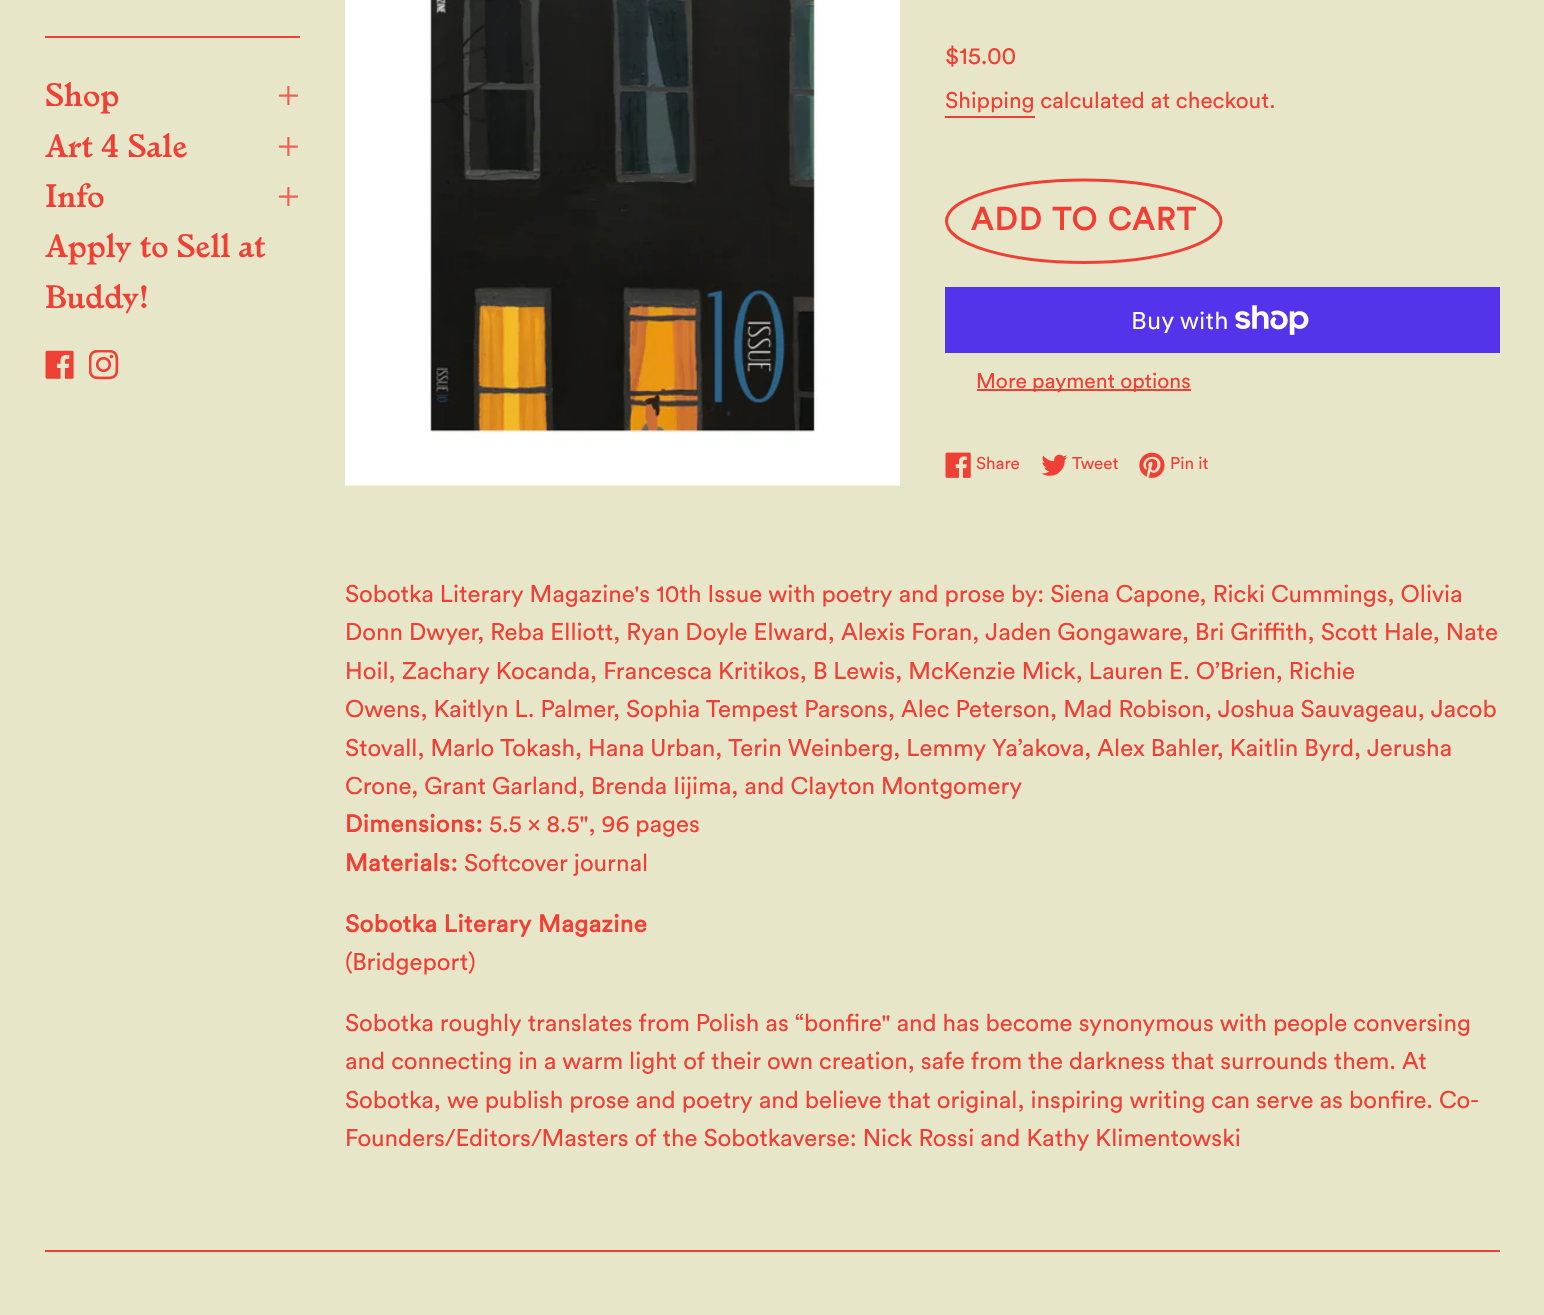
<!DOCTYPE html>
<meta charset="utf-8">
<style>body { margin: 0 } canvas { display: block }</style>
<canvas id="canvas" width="1544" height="1315"></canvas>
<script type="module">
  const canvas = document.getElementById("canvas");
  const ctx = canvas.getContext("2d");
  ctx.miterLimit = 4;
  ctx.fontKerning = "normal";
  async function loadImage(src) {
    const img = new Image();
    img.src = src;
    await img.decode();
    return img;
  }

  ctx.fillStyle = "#e8e6c9";
  ctx.fillRect(0, 0, 1544, 1315);
  ctx.fillStyle = "#ef4036";
  ctx.fillRect(45, 36, 255, 2);
  ctx.font = "600 31.5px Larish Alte";
  ctx.fillText("Shop", 45, 106);
  ctx.fillStyle = "#ee6153";
  ctx.fillText("+", 277, 106);
  ctx.fillStyle = "#ef4036";
  ctx.fillText("Art 4 Sale", 45, 157);
  ctx.fillStyle = "#ee6153";
  ctx.fillText("+", 277, 157);
  ctx.fillStyle = "#ef4036";
  ctx.fillText("Info", 45, 207);
  ctx.fillStyle = "#ee6153";
  ctx.fillText("+", 277, 207);
  ctx.fillStyle = "#ef4036";
  ctx.fillText("Apply to Sell at", 45, 257);
  ctx.fillText("Buddy!", 45, 308);
  ctx.drawImage(await loadImage("img1.png"), 45, 350, 29, 29);
  ctx.drawImage(await loadImage("img2.png"), 89, 350, 30, 30);
  ctx.drawImage(await loadImage("img3.png"), 345, 0, 555, 486);
  ctx.font = "24px Circular";
  ctx.fillText("$15.00", 945, 64);
  ctx.font = "22.5px Circular";
  ctx.fillText("Shipping calculated at checkout.", 945, 108);
  ctx.fillRect(945, 116, 90, 2);
  ctx.beginPath();
  ctx.moveTo(1084, 180);
  ctx.bezierCurveTo(1159.5, 180, 1221, 198.5, 1221, 221);
  ctx.bezierCurveTo(1221, 244, 1159.5, 262.5, 1084, 262.5);
  ctx.bezierCurveTo(1008, 262.5, 946.5, 244, 946.5, 221);
  ctx.bezierCurveTo(946.5, 198.5, 1008, 180, 1084, 180);
  ctx.closePath();
  ctx.strokeStyle = "#ef4036";
  ctx.lineWidth = 3;
  ctx.stroke();
  ctx.letterSpacing = "1.5px";
  ctx.font = "bold 31.5px Circular";
  ctx.fillText("ADD TO CART", 971, 230);
  ctx.fillStyle = "#5433eb";
  ctx.fillRect(945, 287, 555, 66);
  ctx.letterSpacing = "0px";
  ctx.font = "24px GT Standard";
  ctx.fillStyle = "#ffffff";
  ctx.fillText("Buy with", 1131, 329);
  ctx.drawImage(await loadImage("img4.png"), 1235, 305, 74, 30);
  ctx.fillStyle = "#ef4036";
  ctx.fillRect(977, 389, 214, 2);
  ctx.font = "21px Circular";
  ctx.fillText("More payment options", 976, 388);
  ctx.drawImage(await loadImage("img5.png"), 945, 452, 26, 26);
  ctx.font = "17px Circular";
  ctx.fillText("Share", 976, 469);
  ctx.drawImage(await loadImage("img6.png"), 1041, 454, 27, 22);
  ctx.fillText("Tweet", 1072, 469);
  ctx.drawImage(await loadImage("img7.png"), 1139, 452, 26, 26);
  ctx.fillText("Pin it", 1170, 469);
  ctx.font = "24px Circular";
  ctx.fillText("Sobotka Literary Magazine's 10th Issue with poetry and prose by: Siena Capone, Ricki Cummings, Olivia", 345, 602);
  ctx.fillText("Donn Dwyer, Reba Elliott, Ryan Doyle Elward, Alexis Foran, Jaden Gongaware, Bri Griffith, Scott Hale, Nate", 345, 640);
  ctx.fillText("Hoil, Zachary Kocanda, Francesca Kritikos, B Lewis, McKenzie Mick, Lauren E. O’Brien, Richie", 345, 679);
  ctx.fillText("Owens, Kaitlyn L. Palmer, Sophia Tempest Parsons, Alec Peterson, Mad Robison, Joshua Sauvageau, Jacob", 345, 717);
  ctx.fillText("Stovall, Marlo Tokash, Hana Urban, Terin Weinberg, Lemmy Ya’akova, Alex Bahler, Kaitlin Byrd, Jerusha", 345, 756);
  ctx.fillText("Crone, Grant Garland, Brenda Iijima, and Clayton Montgomery", 345, 794);
  ctx.letterSpacing = "0.5px";
  ctx.font = "bold 24px Circular";
  ctx.fillText("Dimensions:", 345, 832);
  ctx.letterSpacing = "0px";
  ctx.font = "24px Circular";
  ctx.fillText("5.5 x 8.5\", 96 pages", 489, 832);
  ctx.letterSpacing = "0.5px";
  ctx.font = "bold 24px Circular";
  ctx.fillText("Materials:", 345, 871);
  ctx.letterSpacing = "0px";
  ctx.font = "24px Circular";
  ctx.fillText("Softcover journal", 464, 871);
  ctx.letterSpacing = "0.5px";
  ctx.font = "bold 24px Circular";
  ctx.fillText("Sobotka Literary Magazine", 345, 932);
  ctx.letterSpacing = "0px";
  ctx.font = "24px Circular";
  ctx.fillText("(Bridgeport)", 345, 970);
  ctx.fillText("Sobotka roughly translates from Polish as “bonfire\" and has become synonymous with people conversing", 345, 1031);
  ctx.fillText("and connecting in a warm light of their own creation, safe from the darkness that surrounds them. At", 345, 1069);
  ctx.fillText("Sobotka, we publish prose and poetry and believe that original, inspiring writing can serve as bonfire. Co-", 345, 1108);
  ctx.fillText("Founders/Editors/Masters of the Sobotkaverse: Nick Rossi and Kathy Klimentowski", 345, 1146);
  ctx.fillRect(45, 1250, 1455, 2);
</script>
